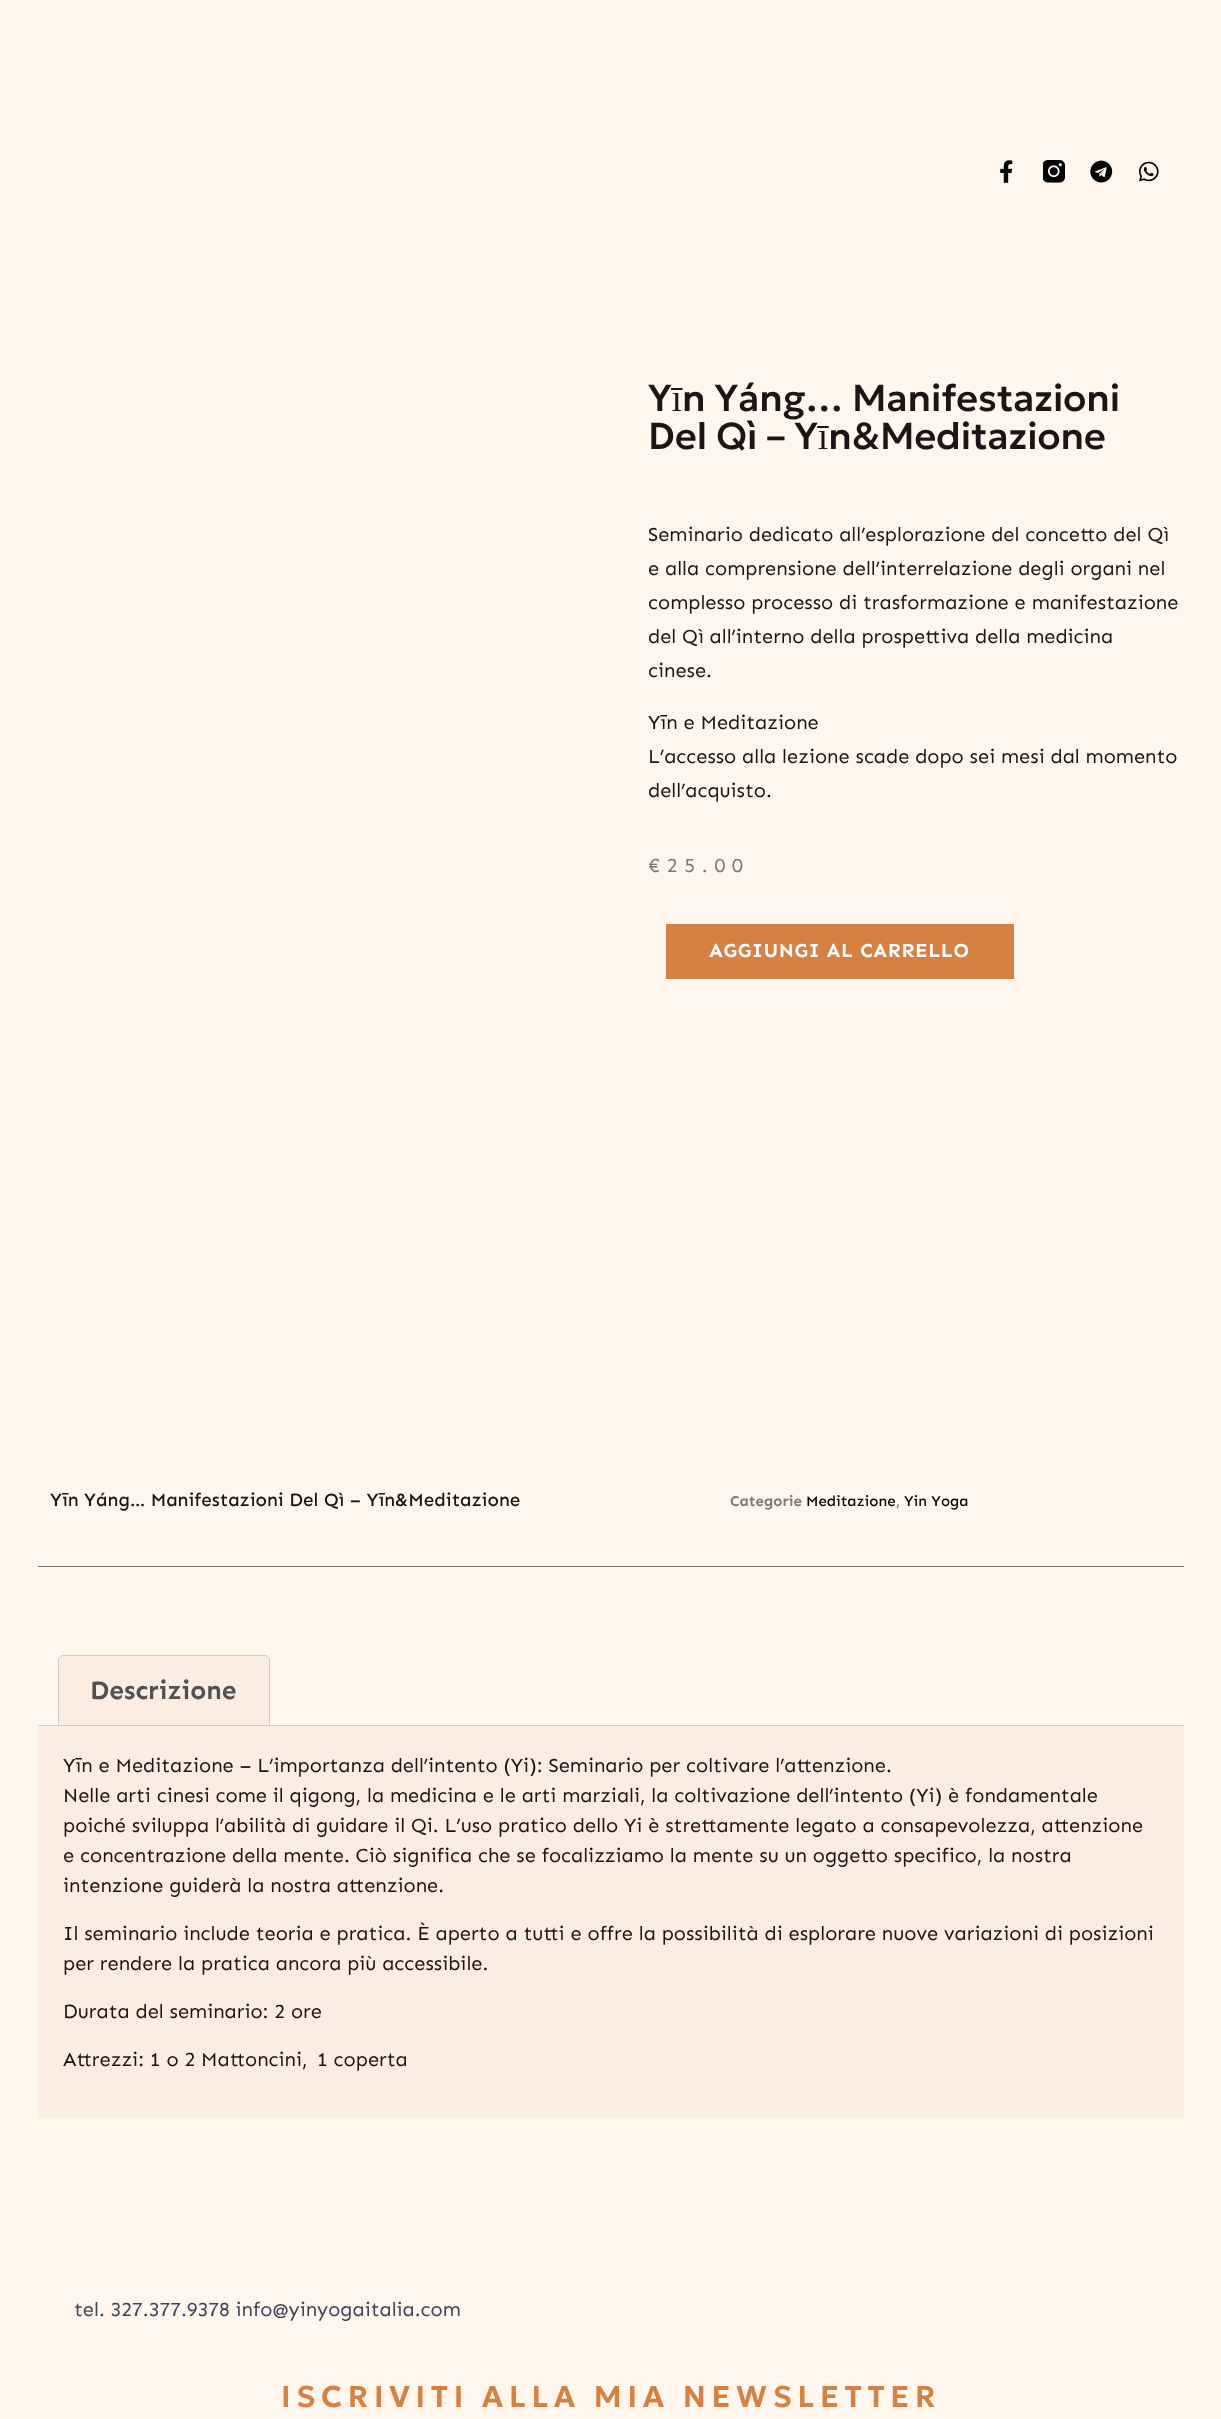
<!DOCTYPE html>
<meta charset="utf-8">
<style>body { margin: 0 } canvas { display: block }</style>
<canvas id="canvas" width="1221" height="2419"></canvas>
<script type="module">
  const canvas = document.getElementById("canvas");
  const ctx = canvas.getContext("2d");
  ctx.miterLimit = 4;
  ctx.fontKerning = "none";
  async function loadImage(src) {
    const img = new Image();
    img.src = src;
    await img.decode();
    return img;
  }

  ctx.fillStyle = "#fff6ed";
  ctx.fillRect(0, 0, 1221, 2419);
  ctx.drawImage(await loadImage("img1.png"), 1000, 160, 13, 23);
  ctx.drawImage(await loadImage("img2.png"), 1043, 160, 22, 23);
  ctx.drawImage(await loadImage("img3.png"), 1090, 160, 23, 23);
  ctx.drawImage(await loadImage("img4.png"), 1139, 161, 20, 21);
  ctx.font = "500 37.5px Geologica";
  ctx.fillStyle = "#1d1515";
  ctx.fillText("Yīn Yáng… Manifestazioni", 648, 411);
  ctx.fillText("Del Qì – Yīn&Meditazione", 648, 449);
  ctx.font = "20px Sen";
  ctx.fillText("Seminario dedicato all’esplorazione del concetto del Qì", 648, 541);
  ctx.fillText("e alla comprensione dell’interrelazione degli organi nel", 648, 575);
  ctx.fillText("complesso processo di trasformazione e manifestazione", 648, 609);
  ctx.fillText("del Qì all’interno della prospettiva della medicina", 648, 643);
  ctx.fillText("cinese.", 648, 677);
  ctx.fillText("Yīn e Meditazione", 648, 729);
  ctx.fillText("L’accesso alla lezione scade dopo sei mesi dal momento", 648, 763);
  ctx.fillText("dell’acquisto.", 648, 797);
  ctx.letterSpacing = "6.75px";
  ctx.fillStyle = "#7a7a7a";
  ctx.fillText("€25.00", 648, 872);
  ctx.fillStyle = "#d58145";
  ctx.fillRect(666, 924, 348, 55);
  ctx.letterSpacing = "0.6px";
  ctx.font = "bold 20px Sen";
  ctx.fillStyle = "#ffffff";
  ctx.fillText("AGGIUNGI AL CARRELLO", 709, 957);
  ctx.fillStyle = "#7a7a7a";
  ctx.fillRect(38, 1566, 1146, 1);
  ctx.letterSpacing = "0px";
  ctx.font = "500 18.75px Sen";
  ctx.fillStyle = "#1d1515";
  ctx.fillText("Yīn Yáng… Manifestazioni Del Qì – Yīn&Meditazione", 50, 1506);
  ctx.font = "bold 15px Sen";
  ctx.fillStyle = "#7a7a7a";
  ctx.fillText("Categorie", 730, 1506);
  ctx.font = "500 15px Sen";
  ctx.fillStyle = "#000000";
  ctx.fillText("Meditazione", 806, 1506);
  ctx.fillStyle = "#7a7a7a";
  ctx.fillText(",", 896, 1506);
  ctx.fillStyle = "#000000";
  ctx.fillText("Yin Yoga", 904, 1506);
  ctx.fillStyle = "#d3ced2";
  ctx.fillRect(38, 1725, 1146, 1);
  ctx.fillStyle = "#fcede3";
  ctx.beginPath();
  ctx.roundRect(58.5, 1655.5, 211, 70, [4.5, 4.5, 0, 0]);
  ctx.fill();
  ctx.strokeStyle = "#cfc8d8";
  ctx.stroke();
  ctx.font = "bold 26.25px Sen";
  ctx.fillStyle = "#515151";
  ctx.fillText("Descrizione", 90, 1699);
  ctx.fillStyle = "#fcede3";
  ctx.fillRect(38, 1726, 1146, 392);
  ctx.font = "20px Sen";
  ctx.fillStyle = "#1d1515";
  ctx.fillText("Yīn e Meditazione – L’importanza dell’intento (Yi): Seminario per coltivare l’attenzione.", 63, 1772);
  ctx.fillText("Nelle arti cinesi come il qigong, la medicina e le arti marziali, la coltivazione dell’intento (Yi) è fondamentale", 63, 1802);
  ctx.fillText("poiché sviluppa l’abilità di guidare il Qi. L’uso pratico dello Yi è strettamente legato a consapevolezza, attenzione", 63, 1832);
  ctx.fillText("e concentrazione della mente. Ciò significa che se focalizziamo la mente su un oggetto specifico, la nostra", 63, 1862);
  ctx.fillText("intenzione guiderà la nostra attenzione.", 63, 1892);
  ctx.fillText("Il seminario include teoria e pratica. È aperto a tutti e offre la possibilità di esplorare nuove variazioni di posizioni", 63, 1940);
  ctx.fillText("per rendere la pratica ancora più accessibile.", 63, 1970);
  ctx.fillText("Durata del seminario: 2 ore", 63, 2018);
  ctx.fillText("Attrezzi: 1 o 2 Mattoncini,", 63, 2066);
  ctx.fillText("1 coperta", 317, 2066);
  ctx.fillStyle = "#3d4459";
  ctx.fillText("tel. 327.377.9378 info@yinyogaitalia.com", 74, 2316);
  ctx.letterSpacing = "5.75px";
  ctx.font = "600 30px Geologica";
  ctx.fillStyle = "#d58145";
  ctx.fillText("ISCRIVITI ALLA MIA NEWSLETTER", 281, 2407);
</script>
